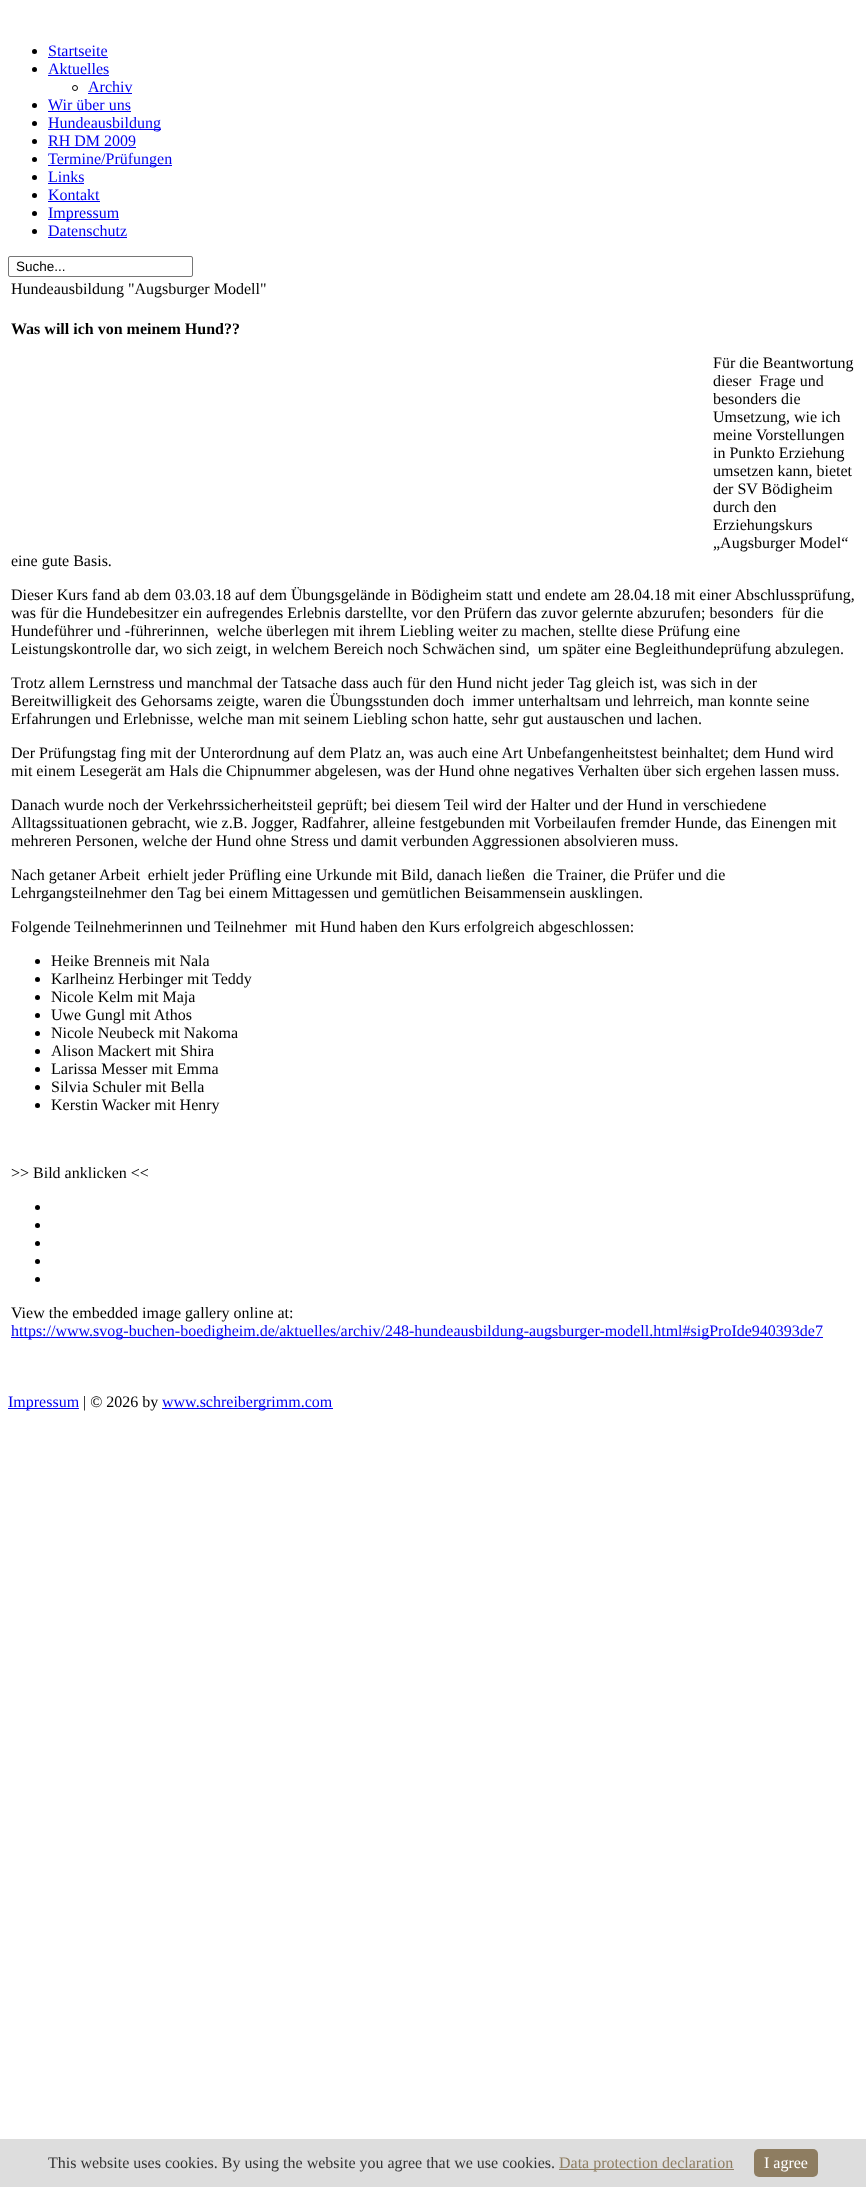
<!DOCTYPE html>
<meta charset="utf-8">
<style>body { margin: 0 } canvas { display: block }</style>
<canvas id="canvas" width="866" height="2187"></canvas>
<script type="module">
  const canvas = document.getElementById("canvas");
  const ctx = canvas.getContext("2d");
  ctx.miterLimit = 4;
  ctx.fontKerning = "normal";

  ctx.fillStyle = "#ffffff";
  ctx.fillRect(0, 0, 866, 2187);
  ctx.fillStyle = "#000000";
  ctx.beginPath();
  ctx.arc(34.5, 51.5, 2.5, 0, Math.PI * 2);
  ctx.fill();
  ctx.font = "16px Liberation Serif";
  ctx.fillStyle = "#0000ee";
  ctx.fillText("Startseite", 48, 56);
  ctx.fillRect(48, 57, 60, 1);
  ctx.fillStyle = "#000000";
  ctx.beginPath();
  ctx.arc(34.5, 69.5, 2.5, 0, Math.PI * 2);
  ctx.fill();
  ctx.fillStyle = "#0000ee";
  ctx.fillText("Aktuelles", 48, 74);
  ctx.fillRect(48, 75, 61, 1);
  ctx.beginPath();
  ctx.arc(75, 88, 2.5, 0, Math.PI * 2);
  ctx.strokeStyle = "#000000";
  ctx.stroke();
  ctx.fillText("Archiv", 88, 92);
  ctx.fillRect(88, 93, 44, 1);
  ctx.fillStyle = "#000000";
  ctx.beginPath();
  ctx.arc(34.5, 105.5, 2.5, 0, Math.PI * 2);
  ctx.fill();
  ctx.fillStyle = "#0000ee";
  ctx.fillText("Wir über uns", 48, 110);
  ctx.fillRect(48, 111, 83, 1);
  ctx.fillStyle = "#000000";
  ctx.beginPath();
  ctx.arc(34.5, 123.5, 2.5, 0, Math.PI * 2);
  ctx.fill();
  ctx.fillStyle = "#0000ee";
  ctx.fillRect(48, 129, 113, 1);
  ctx.fillText("Hundeausbildung", 48, 128);
  ctx.fillStyle = "#000000";
  ctx.beginPath();
  ctx.arc(34.5, 141.5, 2.5, 0, Math.PI * 2);
  ctx.fill();
  ctx.fillStyle = "#0000ee";
  ctx.fillText("RH DM 2009", 48, 146);
  ctx.fillRect(48, 147, 88, 1);
  ctx.fillStyle = "#000000";
  ctx.beginPath();
  ctx.arc(34.5, 159.5, 2.5, 0, Math.PI * 2);
  ctx.fill();
  ctx.fillStyle = "#0000ee";
  ctx.fillRect(48, 165, 124, 1);
  ctx.fillText("Termine/Prüfungen", 48, 164);
  ctx.fillStyle = "#000000";
  ctx.beginPath();
  ctx.arc(34.5, 177.5, 2.5, 0, Math.PI * 2);
  ctx.fill();
  ctx.fillStyle = "#0000ee";
  ctx.fillText("Links", 48, 182);
  ctx.fillRect(48, 183, 36, 1);
  ctx.fillStyle = "#000000";
  ctx.beginPath();
  ctx.arc(34.5, 195.5, 2.5, 0, Math.PI * 2);
  ctx.fill();
  ctx.fillStyle = "#0000ee";
  ctx.fillText("Kontakt", 48, 200);
  ctx.fillRect(48, 201, 52, 1);
  ctx.fillStyle = "#000000";
  ctx.beginPath();
  ctx.arc(34.5, 213.5, 2.5, 0, Math.PI * 2);
  ctx.fill();
  ctx.fillStyle = "#0000ee";
  ctx.fillRect(48, 219, 71, 1);
  ctx.fillText("Impressum", 48, 218);
  ctx.fillStyle = "#000000";
  ctx.beginPath();
  ctx.arc(34.5, 231.5, 2.5, 0, Math.PI * 2);
  ctx.fill();
  ctx.fillStyle = "#0000ee";
  ctx.fillText("Datenschutz", 48, 236);
  ctx.fillRect(48, 237, 79, 1);
  ctx.beginPath();
  ctx.roundRect(8.5, 256.5, 184, 20, 1.5);
  ctx.strokeStyle = "#767676";
  ctx.stroke();
  ctx.font = "13.5px Liberation Sans";
  ctx.fillStyle = "#000000";
  ctx.fillText("Suche...", 16, 271);
  ctx.font = "16px Liberation Serif";
  ctx.fillText("Hundeausbildung \"Augsburger Modell\"", 11, 294);
  ctx.font = "bold 16px Liberation Serif";
  ctx.fillText("Was will ich von meinem Hund??", 11, 334);
  ctx.font = "16px Liberation Serif";
  ctx.fillText("Für die Beantwortung", 713, 368);
  ctx.fillText("dieser  Frage und", 713, 386);
  ctx.fillText("besonders die", 713, 404);
  ctx.fillText("Umsetzung, wie ich", 713, 422);
  ctx.fillText("meine Vorstellungen", 713, 440);
  ctx.fillText("in Punkto Erziehung", 713, 458);
  ctx.fillText("umsetzen kann, bietet", 713, 476);
  ctx.fillText("der SV Bödigheim", 713, 494);
  ctx.fillText("durch den", 713, 512);
  ctx.fillText("Erziehungskurs", 713, 530);
  ctx.fillText("„Augsburger Model“", 713, 548);
  ctx.fillText("eine gute Basis.", 11, 566);
  ctx.fillText("Dieser Kurs fand ab dem 03.03.18 auf dem Übungsgelände in Bödigheim statt und endete am 28.04.18 mit einer Abschlussprüfung,", 11, 600);
  ctx.fillText("was für die Hundebesitzer ein aufregendes Erlebnis darstellte, vor den Prüfern das zuvor gelernte abzurufen; besonders  für die", 11, 618);
  ctx.fillText("Hundeführer und -führerinnen,  welche überlegen mit ihrem Liebling weiter zu machen, stellte diese Prüfung eine", 11, 636);
  ctx.fillText("Leistungskontrolle dar, wo sich zeigt, in welchem Bereich noch Schwächen sind,  um später eine Begleithundeprüfung abzulegen.", 11, 654);
  ctx.fillText("Trotz allem Lernstress und manchmal der Tatsache dass auch für den Hund nicht jeder Tag gleich ist, was sich in der", 11, 688);
  ctx.fillText("Bereitwilligkeit des Gehorsams zeigte, waren die Übungsstunden doch  immer unterhaltsam und lehrreich, man konnte seine", 11, 706);
  ctx.fillText("Erfahrungen und Erlebnisse, welche man mit seinem Liebling schon hatte, sehr gut austauschen und lachen.", 11, 724);
  ctx.fillText("Der Prüfungstag fing mit der Unterordnung auf dem Platz an, was auch eine Art Unbefangenheitstest beinhaltet; dem Hund wird", 11, 758);
  ctx.fillText("mit einem Lesegerät am Hals die Chipnummer abgelesen, was der Hund ohne negatives Verhalten über sich ergehen lassen muss.", 11, 776);
  ctx.fillText("Danach wurde noch der Verkehrssicherheitsteil geprüft; bei diesem Teil wird der Halter und der Hund in verschiedene", 11, 810);
  ctx.fillText("Alltagssituationen gebracht, wie z.B. Jogger, Radfahrer, alleine festgebunden mit Vorbeilaufen fremder Hunde, das Einengen mit", 11, 828);
  ctx.fillText("mehreren Personen, welche der Hund ohne Stress und damit verbunden Aggressionen absolvieren muss.", 11, 846);
  ctx.fillText("Nach getaner Arbeit  erhielt jeder Prüfling eine Urkunde mit Bild, danach ließen  die Trainer, die Prüfer und die", 11, 880);
  ctx.fillText("Lehrgangsteilnehmer den Tag bei einem Mittagessen und gemütlichen Beisammensein ausklingen.", 11, 898);
  ctx.fillText("Folgende Teilnehmerinnen und Teilnehmer  mit Hund haben den Kurs erfolgreich abgeschlossen:", 11, 932);
  ctx.beginPath();
  ctx.arc(37.5, 961.5, 2.5, 0, Math.PI * 2);
  ctx.fill();
  ctx.fillText("Heike Brenneis mit Nala", 51, 966);
  ctx.beginPath();
  ctx.arc(37.5, 979.5, 2.5, 0, Math.PI * 2);
  ctx.fill();
  ctx.fillText("Karlheinz Herbinger mit Teddy", 51, 984);
  ctx.beginPath();
  ctx.arc(37.5, 997.5, 2.5, 0, Math.PI * 2);
  ctx.fill();
  ctx.fillText("Nicole Kelm mit Maja", 51, 1002);
  ctx.beginPath();
  ctx.arc(37.5, 1015.5, 2.5, 0, Math.PI * 2);
  ctx.fill();
  ctx.fillText("Uwe Gungl mit Athos", 51, 1020);
  ctx.beginPath();
  ctx.arc(37.5, 1033.5, 2.5, 0, Math.PI * 2);
  ctx.fill();
  ctx.fillText("Nicole Neubeck mit Nakoma", 51, 1038);
  ctx.beginPath();
  ctx.arc(37.5, 1051.5, 2.5, 0, Math.PI * 2);
  ctx.fill();
  ctx.fillText("Alison Mackert mit Shira", 51, 1056);
  ctx.beginPath();
  ctx.arc(37.5, 1069.5, 2.5, 0, Math.PI * 2);
  ctx.fill();
  ctx.fillText("Larissa Messer mit Emma", 51, 1074);
  ctx.beginPath();
  ctx.arc(37.5, 1087.5, 2.5, 0, Math.PI * 2);
  ctx.fill();
  ctx.fillText("Silvia Schuler mit Bella", 51, 1092);
  ctx.beginPath();
  ctx.arc(37.5, 1105.5, 2.5, 0, Math.PI * 2);
  ctx.fill();
  ctx.fillText("Kerstin Wacker mit Henry", 51, 1110);
  ctx.fillText(">> Bild anklicken <<", 11, 1178);
  ctx.beginPath();
  ctx.arc(37.5, 1207.5, 2.5, 0, Math.PI * 2);
  ctx.fill();
  ctx.beginPath();
  ctx.arc(37.5, 1225.5, 2.5, 0, Math.PI * 2);
  ctx.fill();
  ctx.beginPath();
  ctx.arc(37.5, 1243.5, 2.5, 0, Math.PI * 2);
  ctx.fill();
  ctx.beginPath();
  ctx.arc(37.5, 1261.5, 2.5, 0, Math.PI * 2);
  ctx.fill();
  ctx.beginPath();
  ctx.arc(37.5, 1279.5, 2.5, 0, Math.PI * 2);
  ctx.fill();
  ctx.fillText("View the embedded image gallery online at:", 11, 1318);
  ctx.fillStyle = "#0000ee";
  ctx.fillRect(11, 1337, 812, 1);
  ctx.fillText("https://www.svog-buchen-boedigheim.de/aktuelles/archiv/248-hundeausbildung-augsburger-modell.html#sigProIde940393de7", 11, 1336);
  ctx.fillRect(8, 1408, 71, 1);
  ctx.fillText("Impressum", 8, 1407);
  ctx.fillStyle = "#000000";
  ctx.fillText("| © 2026 by", 83, 1407);
  ctx.fillStyle = "#0000ee";
  ctx.fillRect(162, 1408, 171, 1);
  ctx.fillText("www.schreibergrimm.com", 162, 1407);
  ctx.fillStyle = "#dddddd";
  ctx.fillRect(0, 2139, 866, 48);
  ctx.fillStyle = "#343434";
  ctx.fillText("This website uses cookies. By using the website you agree that we use cookies.", 48, 2168);
  ctx.fillStyle = "#8e7d61";
  ctx.fillRect(559, 2169, 175, 1);
  ctx.fillText("Data protection declaration", 559, 2168);
  ctx.beginPath();
  ctx.roundRect(754, 2149, 64, 28, 5);
  ctx.fill();
  ctx.fillStyle = "#ffffff";
  ctx.fillText("I agree", 764, 2168);
</script>
